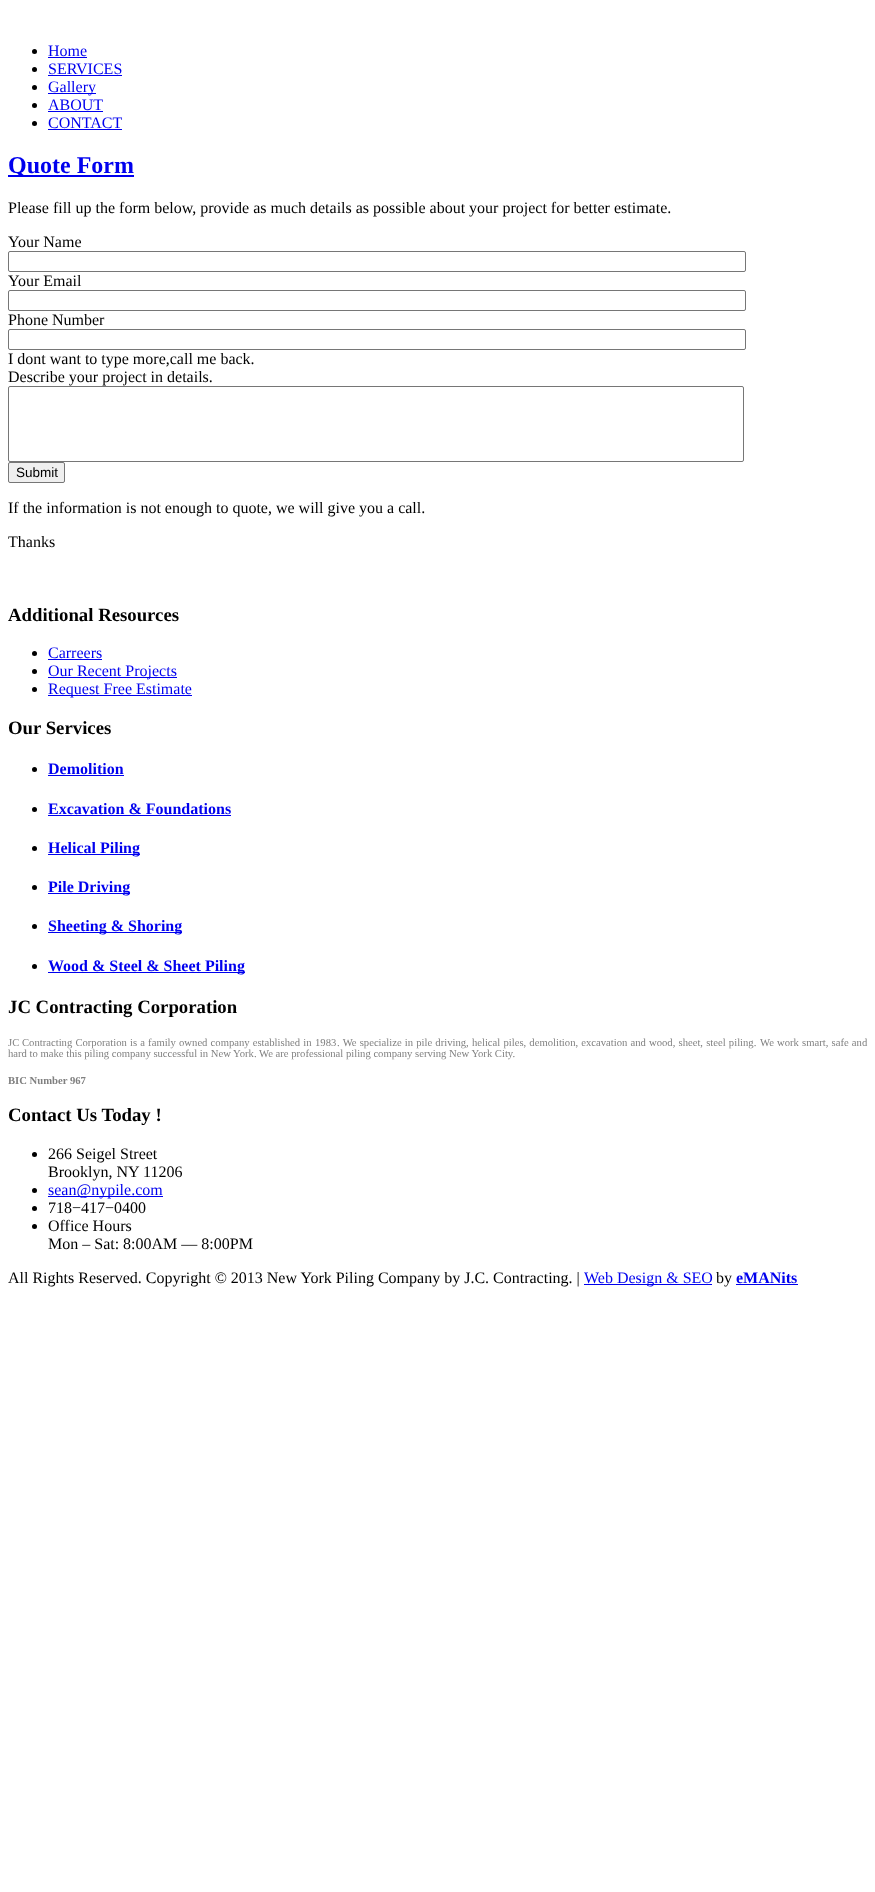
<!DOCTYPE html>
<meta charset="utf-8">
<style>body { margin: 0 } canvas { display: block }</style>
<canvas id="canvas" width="875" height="1892"></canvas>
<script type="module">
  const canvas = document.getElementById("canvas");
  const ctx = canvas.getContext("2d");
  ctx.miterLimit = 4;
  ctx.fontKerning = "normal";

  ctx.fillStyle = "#ffffff";
  ctx.fillRect(0, 0, 875, 1892);
  ctx.fillStyle = "#000000";
  ctx.beginPath();
  ctx.arc(34.5, 51.5, 2.5, 0, Math.PI * 2);
  ctx.fill();
  ctx.font = "16px Liberation Serif";
  ctx.fillStyle = "#0000ee";
  ctx.fillText("Home", 48, 56);
  ctx.fillRect(48, 57, 39, 1);
  ctx.fillStyle = "#000000";
  ctx.beginPath();
  ctx.arc(34.5, 69.5, 2.5, 0, Math.PI * 2);
  ctx.fill();
  ctx.fillStyle = "#0000ee";
  ctx.fillText("SERVICES", 48, 74);
  ctx.fillRect(48, 75, 74, 1);
  ctx.fillStyle = "#000000";
  ctx.beginPath();
  ctx.arc(34.5, 87.5, 2.5, 0, Math.PI * 2);
  ctx.fill();
  ctx.fillStyle = "#0000ee";
  ctx.fillRect(48, 93, 48, 1);
  ctx.fillText("Gallery", 48, 92);
  ctx.fillStyle = "#000000";
  ctx.beginPath();
  ctx.arc(34.5, 105.5, 2.5, 0, Math.PI * 2);
  ctx.fill();
  ctx.fillStyle = "#0000ee";
  ctx.fillText("ABOUT", 48, 110);
  ctx.fillRect(48, 111, 55, 1);
  ctx.fillStyle = "#000000";
  ctx.beginPath();
  ctx.arc(34.5, 123.5, 2.5, 0, Math.PI * 2);
  ctx.fill();
  ctx.fillStyle = "#0000ee";
  ctx.fillText("CONTACT", 48, 128);
  ctx.fillRect(48, 129, 74, 1);
  ctx.fillRect(8, 175, 126, 2);
  ctx.font = "bold 24px Liberation Serif";
  ctx.fillText("Quote Form", 8, 173);
  ctx.font = "16px Liberation Serif";
  ctx.fillStyle = "#000000";
  ctx.fillText("Please fill up the form below, provide as much details as possible about your project for better estimate.", 8, 213);
  ctx.fillText("Your Name", 8, 247);
  ctx.beginPath();
  ctx.roundRect(8.5, 251.5, 737, 20, 1.5);
  ctx.strokeStyle = "#767676";
  ctx.stroke();
  ctx.fillText("Your Email", 8, 286);
  ctx.beginPath();
  ctx.roundRect(8.5, 290.5, 737, 20, 1.5);
  ctx.stroke();
  ctx.fillText("Phone Number", 8, 325);
  ctx.beginPath();
  ctx.roundRect(8.5, 329.5, 737, 20, 1.5);
  ctx.stroke();
  ctx.fillText("I dont want to type more,call me back.", 8, 364);
  ctx.fillText("Describe your project in details.", 8, 382);
  ctx.beginPath();
  ctx.roundRect(8.5, 386.5, 735, 75, 1.5);
  ctx.stroke();
  ctx.fillStyle = "#efefef";
  ctx.beginPath();
  ctx.roundRect(8.5, 462.5, 56, 20, 1.5);
  ctx.fill();
  ctx.stroke();
  ctx.font = "13.5px Liberation Sans";
  ctx.fillStyle = "#000000";
  ctx.fillText("Submit", 16, 477);
  ctx.font = "16px Liberation Serif";
  ctx.fillText("If the information is not enough to quote, we will give you a call.", 8, 513);
  ctx.fillText("Thanks", 8, 547);
  ctx.font = "bold 18.75px Liberation Serif";
  ctx.fillText("Additional Resources", 8, 621);
  ctx.beginPath();
  ctx.arc(34.5, 653.5, 2.5, 0, Math.PI * 2);
  ctx.fill();
  ctx.font = "16px Liberation Serif";
  ctx.fillStyle = "#0000ee";
  ctx.fillText("Carreers", 48, 658);
  ctx.fillRect(48, 659, 54, 1);
  ctx.fillStyle = "#000000";
  ctx.beginPath();
  ctx.arc(34.5, 671.5, 2.5, 0, Math.PI * 2);
  ctx.fill();
  ctx.fillStyle = "#0000ee";
  ctx.fillRect(48, 677, 129, 1);
  ctx.fillText("Our Recent Projects", 48, 676);
  ctx.fillStyle = "#000000";
  ctx.beginPath();
  ctx.arc(34.5, 689.5, 2.5, 0, Math.PI * 2);
  ctx.fill();
  ctx.fillStyle = "#0000ee";
  ctx.fillRect(48, 695, 144, 1);
  ctx.fillText("Request Free Estimate", 48, 694);
  ctx.font = "bold 18.75px Liberation Serif";
  ctx.fillStyle = "#000000";
  ctx.fillText("Our Services", 8, 734);
  ctx.beginPath();
  ctx.arc(34.5, 769.5, 2.5, 0, Math.PI * 2);
  ctx.fill();
  ctx.font = "bold 16px Liberation Serif";
  ctx.fillStyle = "#0000ee";
  ctx.fillText("Demolition", 48, 774);
  ctx.fillRect(48, 775, 76, 1);
  ctx.fillStyle = "#000000";
  ctx.beginPath();
  ctx.arc(34.5, 809.5, 2.5, 0, Math.PI * 2);
  ctx.fill();
  ctx.fillStyle = "#0000ee";
  ctx.fillText("Excavation & Foundations", 48, 814);
  ctx.fillRect(48, 815, 183, 1);
  ctx.fillStyle = "#000000";
  ctx.beginPath();
  ctx.arc(34.5, 848.5, 2.5, 0, Math.PI * 2);
  ctx.fill();
  ctx.fillStyle = "#0000ee";
  ctx.fillRect(48, 854, 92, 1);
  ctx.fillText("Helical Piling", 48, 853);
  ctx.fillStyle = "#000000";
  ctx.beginPath();
  ctx.arc(34.5, 887.5, 2.5, 0, Math.PI * 2);
  ctx.fill();
  ctx.fillStyle = "#0000ee";
  ctx.fillRect(48, 893, 82, 1);
  ctx.fillText("Pile Driving", 48, 892);
  ctx.fillStyle = "#000000";
  ctx.beginPath();
  ctx.arc(34.5, 926.5, 2.5, 0, Math.PI * 2);
  ctx.fill();
  ctx.fillStyle = "#0000ee";
  ctx.fillRect(48, 932, 134, 1);
  ctx.fillText("Sheeting & Shoring", 48, 931);
  ctx.fillStyle = "#000000";
  ctx.beginPath();
  ctx.arc(34.5, 966.5, 2.5, 0, Math.PI * 2);
  ctx.fill();
  ctx.fillStyle = "#0000ee";
  ctx.fillRect(48, 972, 197, 1);
  ctx.fillText("Wood & Steel & Sheet Piling", 48, 971);
  ctx.font = "bold 18.75px Liberation Serif";
  ctx.fillStyle = "#000000";
  ctx.fillText("JC Contracting Corporation", 8, 1013);
  ctx.font = "10.65px Liberation Serif";
  ctx.fillStyle = "#808080";
  ctx.fillText("JC", 8, 1046);
  ctx.wordSpacing = "0.5px";
  ctx.fillText("Contracting Corporation is a family owned company established in", 22, 1046);
  ctx.wordSpacing = "0px";
  ctx.fillText("1983", 315, 1046);
  ctx.wordSpacing = "0.5px";
  ctx.fillText(". We specialize in pile driving, helical piles, demolition, excavation and wood, sheet, steel piling.", 337, 1046);
  ctx.fillText("We work smart, safe and", 760, 1046);
  ctx.wordSpacing = "0px";
  ctx.fillText("hard to make this piling company successful in New York. We are professional piling company serving New York City.", 8, 1057);
  ctx.font = "bold 10.65px Liberation Serif";
  ctx.fillText("BIC Number 967", 8, 1084);
  ctx.font = "bold 18.75px Liberation Serif";
  ctx.fillStyle = "#000000";
  ctx.fillText("Contact Us Today !", 8, 1121);
  ctx.beginPath();
  ctx.arc(34.5, 1154.5, 2.5, 0, Math.PI * 2);
  ctx.fill();
  ctx.font = "16px Liberation Serif";
  ctx.fillText("266 Seigel Street", 48, 1159);
  ctx.fillText("Brooklyn, NY", 48, 1177);
  ctx.fillText("11206", 143, 1177);
  ctx.beginPath();
  ctx.arc(34.5, 1190.5, 2.5, 0, Math.PI * 2);
  ctx.fill();
  ctx.fillStyle = "#0000ee";
  ctx.fillRect(48, 1196, 115, 1);
  ctx.fillText("sean@nypile.com", 48, 1195);
  ctx.fillStyle = "#000000";
  ctx.beginPath();
  ctx.arc(34.5, 1208.5, 2.5, 0, Math.PI * 2);
  ctx.fill();
  ctx.fillText("718−417−0400", 48, 1213);
  ctx.beginPath();
  ctx.arc(34.5, 1226.5, 2.5, 0, Math.PI * 2);
  ctx.fill();
  ctx.fillText("Office Hours", 48, 1231);
  ctx.fillText("Mon – Sat: 8:00AM — 8:00PM", 48, 1249);
  ctx.fillText("All Rights Reserved. Copyright © 2013 New York Piling Company by J.C. Contracting. |", 8, 1283);
  ctx.fillStyle = "#0000ee";
  ctx.fillRect(584, 1284, 128, 1);
  ctx.fillText("Web Design & SEO", 584, 1283);
  ctx.fillStyle = "#000000";
  ctx.fillText("by", 716, 1283);
  ctx.font = "bold 16px Liberation Serif";
  ctx.fillStyle = "#0000ee";
  ctx.fillText("eMANits", 736, 1283);
  ctx.fillRect(736, 1284, 62, 1);
</script>
